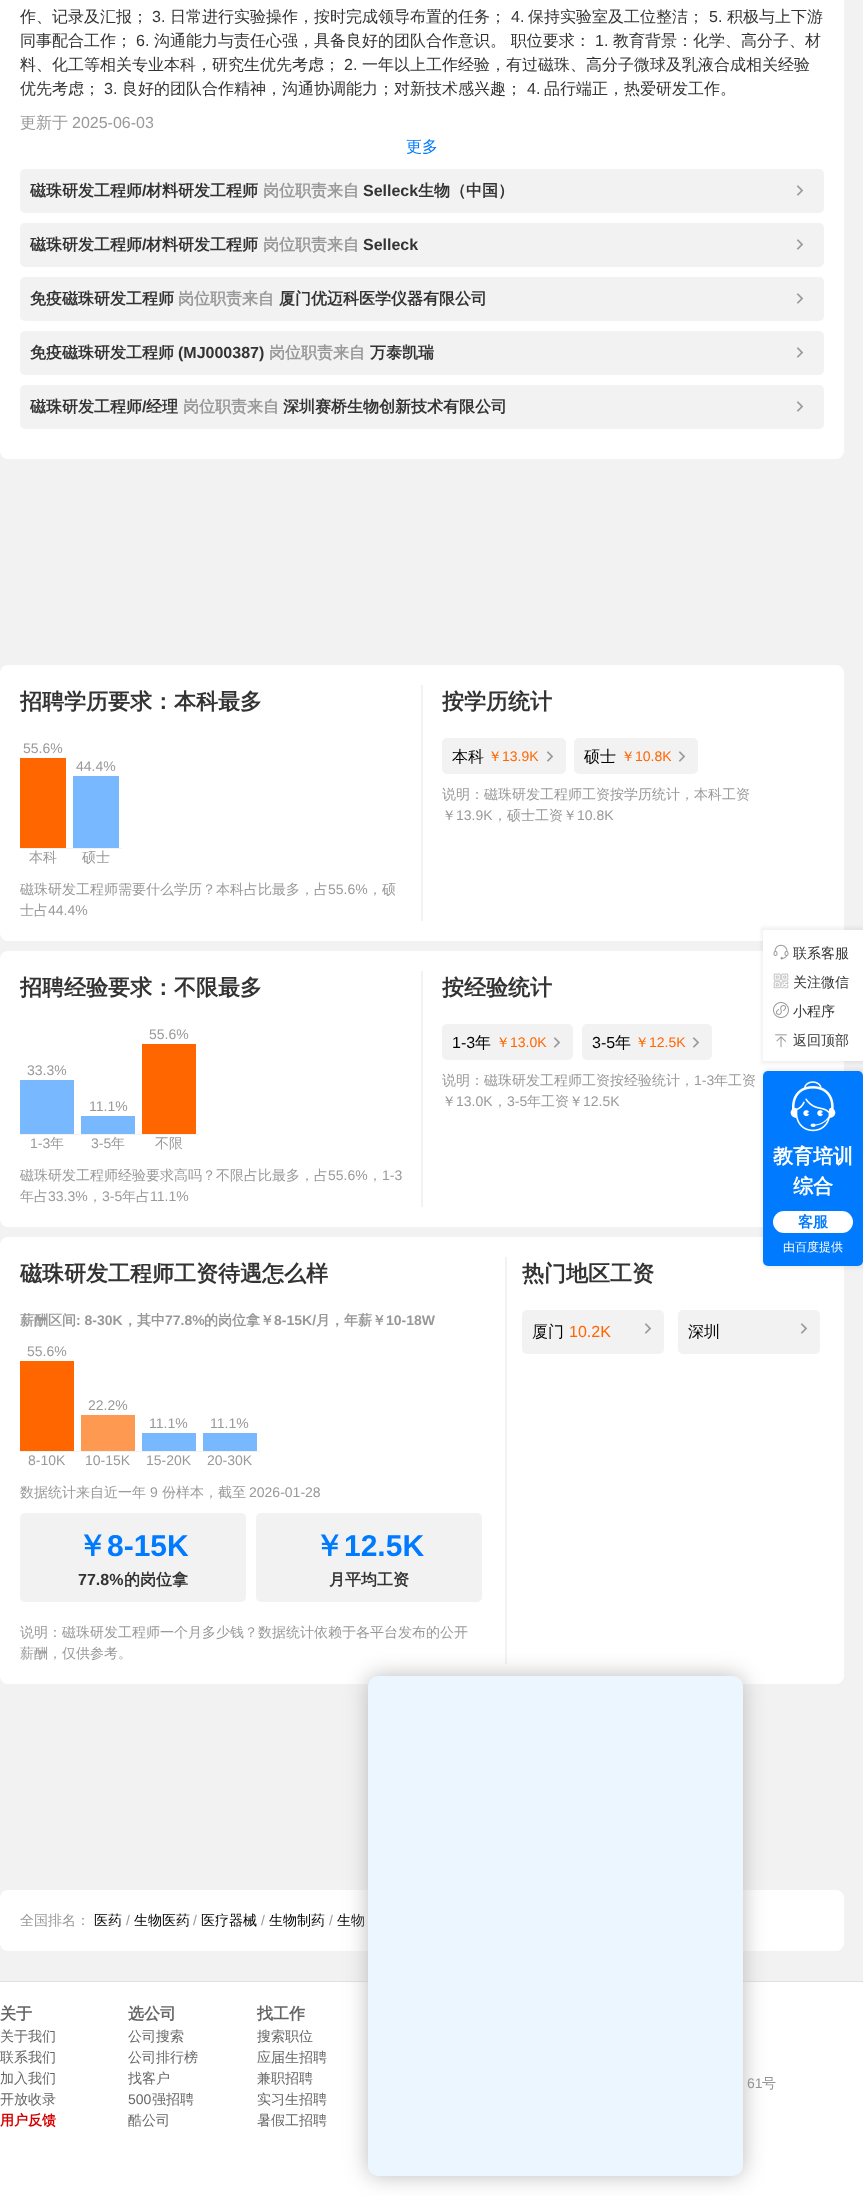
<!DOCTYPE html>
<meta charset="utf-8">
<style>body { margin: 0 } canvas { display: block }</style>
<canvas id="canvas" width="863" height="2196"></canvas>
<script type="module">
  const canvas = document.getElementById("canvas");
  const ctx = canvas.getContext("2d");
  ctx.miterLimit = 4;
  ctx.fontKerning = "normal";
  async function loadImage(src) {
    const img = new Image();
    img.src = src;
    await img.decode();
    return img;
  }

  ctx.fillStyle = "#f2f2f2";
  ctx.fillRect(0, 0, 863, 2196);
  ctx.fillStyle = "#ffffff";
  ctx.beginPath();
  ctx.roundRect(0, -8, 844, 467, 8);
  ctx.fill();
  ctx.font = "500 16px WenQuanYi Zen Hei";
  ctx.fillStyle = "#333333";
  ctx.fillText("作、记录及汇报；", 20, 22);
  ctx.font = "16px Liberation Sans";
  ctx.fillText("3.", 152, 22);
  ctx.font = "500 16px WenQuanYi Zen Hei";
  ctx.fillText("日常进行实验操作，按时完成领导布置的任务；", 170, 22);
  ctx.font = "16px Liberation Sans";
  ctx.fillText("4.", 511, 22);
  ctx.font = "500 16px WenQuanYi Zen Hei";
  ctx.fillText("保持实验室及工位整洁；", 528, 22);
  ctx.font = "16px Liberation Sans";
  ctx.fillText("5.", 709, 22);
  ctx.font = "500 16px WenQuanYi Zen Hei";
  ctx.fillText("积极与上下游", 727, 22);
  ctx.fillText("同事配合工作；", 20, 46);
  ctx.font = "16px Liberation Sans";
  ctx.fillText("6.", 136, 46);
  ctx.font = "500 16px WenQuanYi Zen Hei";
  ctx.fillText("沟通能力与责任心强，具备良好的团队合作意识。 职位要求：", 154, 46);
  ctx.font = "16px Liberation Sans";
  ctx.fillText("1.", 595, 46);
  ctx.font = "500 16px WenQuanYi Zen Hei";
  ctx.fillText("教育背景：化学、高分子、材", 613, 46);
  ctx.fillText("料、化工等相关专业本科，研究生优先考虑；", 20, 70);
  ctx.font = "16px Liberation Sans";
  ctx.fillText("2.", 344, 70);
  ctx.font = "500 16px WenQuanYi Zen Hei";
  ctx.fillText("一年以上工作经验，有过磁珠、高分子微球及乳液合成相关经验", 362, 70);
  ctx.fillText("优先考虑；", 20, 94);
  ctx.font = "16px Liberation Sans";
  ctx.fillText("3.", 104, 94);
  ctx.font = "500 16px WenQuanYi Zen Hei";
  ctx.fillText("良好的团队合作精神，沟通协调能力；对新技术感兴趣；", 122, 94);
  ctx.font = "16px Liberation Sans";
  ctx.fillText("4.", 527, 94);
  ctx.font = "500 16px WenQuanYi Zen Hei";
  ctx.fillText("品行端正，热爱研发工作。", 544, 94);
  ctx.fillStyle = "#999999";
  ctx.fillText("更新于", 20, 128);
  ctx.font = "16px Liberation Sans";
  ctx.fillText("2025-06-03", 72, 128);
  ctx.font = "500 16px WenQuanYi Zen Hei";
  ctx.fillStyle = "#007aff";
  ctx.fillText("更多", 406, 152);
  ctx.fillStyle = "#f2f2f2";
  ctx.beginPath();
  ctx.roundRect(20, 169, 804, 44, 5);
  ctx.fill();
  ctx.font = "bold 16px WenQuanYi Zen Hei";
  ctx.fillStyle = "#333333";
  ctx.fillText("磁珠研发工程师", 30, 196);
  ctx.font = "bold 16px Liberation Sans";
  ctx.fillText("/", 142, 196);
  ctx.font = "bold 16px WenQuanYi Zen Hei";
  ctx.fillText("材料研发工程师", 146, 196);
  ctx.fillStyle = "#999999";
  ctx.fillText("岗位职责来自", 263, 196);
  ctx.font = "bold 16px Liberation Sans";
  ctx.fillStyle = "#333333";
  ctx.fillText("Selleck", 363, 196);
  ctx.font = "bold 16px WenQuanYi Zen Hei";
  ctx.fillText("生物（中国）", 418, 196);
  ctx.drawImage(await loadImage("img1.png"), 796, 185, 8, 11);
  ctx.fillStyle = "#f2f2f2";
  ctx.beginPath();
  ctx.roundRect(20, 223, 804, 44, 5);
  ctx.fill();
  ctx.fillStyle = "#333333";
  ctx.fillText("磁珠研发工程师", 30, 250);
  ctx.font = "bold 16px Liberation Sans";
  ctx.fillText("/", 142, 250);
  ctx.font = "bold 16px WenQuanYi Zen Hei";
  ctx.fillText("材料研发工程师", 146, 250);
  ctx.fillStyle = "#999999";
  ctx.fillText("岗位职责来自", 263, 250);
  ctx.font = "bold 16px Liberation Sans";
  ctx.fillStyle = "#333333";
  ctx.fillText("Selleck", 363, 250);
  ctx.drawImage(await loadImage("img1.png"), 796, 239, 8, 11);
  ctx.fillStyle = "#f2f2f2";
  ctx.beginPath();
  ctx.roundRect(20, 277, 804, 44, 5);
  ctx.fill();
  ctx.font = "bold 16px WenQuanYi Zen Hei";
  ctx.fillStyle = "#333333";
  ctx.fillText("免疫磁珠研发工程师", 30, 304);
  ctx.fillStyle = "#999999";
  ctx.fillText("岗位职责来自", 178, 304);
  ctx.fillStyle = "#333333";
  ctx.fillText("厦门优迈科医学仪器有限公司", 279, 304);
  ctx.drawImage(await loadImage("img1.png"), 796, 293, 8, 11);
  ctx.fillStyle = "#f2f2f2";
  ctx.beginPath();
  ctx.roundRect(20, 331, 804, 44, 5);
  ctx.fill();
  ctx.fillStyle = "#333333";
  ctx.fillText("免疫磁珠研发工程师", 30, 358);
  ctx.font = "bold 16px Liberation Sans";
  ctx.fillText("(MJ000387)", 178, 358);
  ctx.font = "bold 16px WenQuanYi Zen Hei";
  ctx.fillStyle = "#999999";
  ctx.fillText("岗位职责来自", 269, 358);
  ctx.fillStyle = "#333333";
  ctx.fillText("万泰凯瑞", 370, 358);
  ctx.drawImage(await loadImage("img1.png"), 796, 347, 8, 11);
  ctx.fillStyle = "#f2f2f2";
  ctx.beginPath();
  ctx.roundRect(20, 385, 804, 44, 5);
  ctx.fill();
  ctx.fillStyle = "#333333";
  ctx.fillText("磁珠研发工程师", 30, 412);
  ctx.font = "bold 16px Liberation Sans";
  ctx.fillText("/", 142, 412);
  ctx.font = "bold 16px WenQuanYi Zen Hei";
  ctx.fillText("经理", 146, 412);
  ctx.fillStyle = "#999999";
  ctx.fillText("岗位职责来自", 183, 412);
  ctx.fillStyle = "#333333";
  ctx.fillText("深圳赛桥生物创新技术有限公司", 283, 412);
  ctx.drawImage(await loadImage("img1.png"), 796, 401, 8, 11);
  ctx.fillStyle = "#ffffff";
  ctx.beginPath();
  ctx.roundRect(0, 665, 844, 276, 8);
  ctx.fill();
  ctx.font = "bold 22px WenQuanYi Zen Hei";
  ctx.fillStyle = "#333333";
  ctx.fillText("招聘学历要求：本科最多", 20, 709);
  ctx.fillStyle = "#f2f2f2";
  ctx.fillRect(20, 848, 102, 1);
  ctx.fillStyle = "#ff6600";
  ctx.fillRect(20, 758, 46, 90);
  ctx.font = "14px Liberation Sans";
  ctx.fillStyle = "#999999";
  ctx.fillText("55.6%", 23, 753);
  ctx.font = "500 14px WenQuanYi Zen Hei";
  ctx.fillText("本科", 29, 862);
  ctx.fillStyle = "#77b8ff";
  ctx.fillRect(73, 776, 46, 72);
  ctx.font = "14px Liberation Sans";
  ctx.fillStyle = "#999999";
  ctx.fillText("44.4%", 76, 771);
  ctx.font = "500 14px WenQuanYi Zen Hei";
  ctx.fillText("硕士", 82, 862);
  ctx.fillText("磁珠研发工程师需要什么学历？本科占比最多，占", 20, 894);
  ctx.font = "14px Liberation Sans";
  ctx.fillText("55.6%", 328, 894);
  ctx.font = "500 14px WenQuanYi Zen Hei";
  ctx.fillText("，硕", 368, 894);
  ctx.fillText("士占", 20, 915);
  ctx.font = "14px Liberation Sans";
  ctx.fillText("44.4%", 48, 915);
  ctx.fillStyle = "#f2f2f2";
  ctx.fillRect(421, 685, 2, 236);
  ctx.font = "bold 22px WenQuanYi Zen Hei";
  ctx.fillStyle = "#333333";
  ctx.fillText("按学历统计", 442, 709);
  ctx.fillStyle = "#f2f2f2";
  ctx.beginPath();
  ctx.roundRect(442, 738, 124, 36, 5);
  ctx.fill();
  ctx.font = "500 16px WenQuanYi Zen Hei";
  ctx.fillStyle = "#000000";
  ctx.fillText("本科", 452, 762);
  ctx.font = "500 14px WenQuanYi Zen Hei";
  ctx.fillStyle = "#ff6600";
  ctx.fillText("￥", 488, 761);
  ctx.font = "14px Liberation Sans";
  ctx.fillText("13.9K", 502, 761);
  ctx.drawImage(await loadImage("img1.png"), 546, 751, 8, 11);
  ctx.fillStyle = "#f2f2f2";
  ctx.beginPath();
  ctx.roundRect(574, 738, 124, 36, 5);
  ctx.fill();
  ctx.font = "500 16px WenQuanYi Zen Hei";
  ctx.fillStyle = "#000000";
  ctx.fillText("硕士", 584, 762);
  ctx.font = "500 14px WenQuanYi Zen Hei";
  ctx.fillStyle = "#ff6600";
  ctx.fillText("￥", 621, 761);
  ctx.font = "14px Liberation Sans";
  ctx.fillText("10.8K", 635, 761);
  ctx.drawImage(await loadImage("img1.png"), 678, 751, 8, 11);
  ctx.font = "500 14px WenQuanYi Zen Hei";
  ctx.fillStyle = "#999999";
  ctx.fillText("说明：磁珠研发工程师工资按学历统计，本科工资", 442, 799);
  ctx.fillText("￥", 442, 820);
  ctx.font = "14px Liberation Sans";
  ctx.fillText("13.9K", 456, 820);
  ctx.font = "500 14px WenQuanYi Zen Hei";
  ctx.fillText("，硕士工资￥", 493, 820);
  ctx.font = "14px Liberation Sans";
  ctx.fillText("10.8K", 577, 820);
  ctx.fillStyle = "#ffffff";
  ctx.beginPath();
  ctx.roundRect(0, 951, 844, 276, 8);
  ctx.fill();
  ctx.font = "bold 22px WenQuanYi Zen Hei";
  ctx.fillStyle = "#333333";
  ctx.fillText("招聘经验要求：不限最多", 20, 995);
  ctx.fillStyle = "#f2f2f2";
  ctx.fillRect(20, 1134, 179, 1);
  ctx.fillStyle = "#77b8ff";
  ctx.fillRect(20, 1080, 54, 54);
  ctx.font = "14px Liberation Sans";
  ctx.fillStyle = "#999999";
  ctx.fillText("33.3%", 27, 1075);
  ctx.fillText("1-3", 30, 1148);
  ctx.font = "500 14px WenQuanYi Zen Hei";
  ctx.fillText("年", 50, 1148);
  ctx.fillStyle = "#77b8ff";
  ctx.fillRect(81, 1116, 54, 18);
  ctx.font = "14px Liberation Sans";
  ctx.fillStyle = "#999999";
  ctx.fillText("11.1%", 89, 1111);
  ctx.fillText("3-5", 91, 1148);
  ctx.font = "500 14px WenQuanYi Zen Hei";
  ctx.fillText("年", 111, 1148);
  ctx.fillStyle = "#ff6600";
  ctx.fillRect(142, 1044, 54, 90);
  ctx.font = "14px Liberation Sans";
  ctx.fillStyle = "#999999";
  ctx.fillText("55.6%", 149, 1039);
  ctx.font = "500 14px WenQuanYi Zen Hei";
  ctx.fillText("不限", 155, 1148);
  ctx.fillText("磁珠研发工程师经验要求高吗？不限占比最多，占", 20, 1180);
  ctx.font = "14px Liberation Sans";
  ctx.fillText("55.6%", 328, 1180);
  ctx.font = "500 14px WenQuanYi Zen Hei";
  ctx.fillText("，", 368, 1180);
  ctx.font = "14px Liberation Sans";
  ctx.fillText("1-3", 382, 1180);
  ctx.font = "500 14px WenQuanYi Zen Hei";
  ctx.fillText("年占", 20, 1201);
  ctx.font = "14px Liberation Sans";
  ctx.fillText("33.3%", 48, 1201);
  ctx.font = "500 14px WenQuanYi Zen Hei";
  ctx.fillText("，", 88, 1201);
  ctx.font = "14px Liberation Sans";
  ctx.fillText("3-5", 102, 1201);
  ctx.font = "500 14px WenQuanYi Zen Hei";
  ctx.fillText("年占", 122, 1201);
  ctx.font = "14px Liberation Sans";
  ctx.fillText("11.1%", 150, 1201);
  ctx.fillStyle = "#f2f2f2";
  ctx.fillRect(421, 971, 2, 236);
  ctx.font = "bold 22px WenQuanYi Zen Hei";
  ctx.fillStyle = "#333333";
  ctx.fillText("按经验统计", 442, 995);
  ctx.fillStyle = "#f2f2f2";
  ctx.beginPath();
  ctx.roundRect(442, 1024, 131, 36, 5);
  ctx.fill();
  ctx.font = "16px Liberation Sans";
  ctx.fillStyle = "#000000";
  ctx.fillText("1-3", 452, 1048);
  ctx.font = "500 16px WenQuanYi Zen Hei";
  ctx.fillText("年", 475, 1048);
  ctx.font = "500 14px WenQuanYi Zen Hei";
  ctx.fillStyle = "#ff6600";
  ctx.fillText("￥", 496, 1047);
  ctx.font = "14px Liberation Sans";
  ctx.fillText("13.0K", 510, 1047);
  ctx.drawImage(await loadImage("img1.png"), 553, 1037, 8, 11);
  ctx.fillStyle = "#f2f2f2";
  ctx.beginPath();
  ctx.roundRect(582, 1024, 130, 36, 5);
  ctx.fill();
  ctx.font = "16px Liberation Sans";
  ctx.fillStyle = "#000000";
  ctx.fillText("3-5", 592, 1048);
  ctx.font = "500 16px WenQuanYi Zen Hei";
  ctx.fillText("年", 615, 1048);
  ctx.font = "500 14px WenQuanYi Zen Hei";
  ctx.fillStyle = "#ff6600";
  ctx.fillText("￥", 635, 1047);
  ctx.font = "14px Liberation Sans";
  ctx.fillText("12.5K", 649, 1047);
  ctx.drawImage(await loadImage("img1.png"), 692, 1037, 8, 11);
  ctx.font = "500 14px WenQuanYi Zen Hei";
  ctx.fillStyle = "#999999";
  ctx.fillText("说明：磁珠研发工程师工资按经验统计，", 442, 1085);
  ctx.font = "14px Liberation Sans";
  ctx.fillText("1-3", 694, 1085);
  ctx.font = "500 14px WenQuanYi Zen Hei";
  ctx.fillText("年工资", 714, 1085);
  ctx.fillText("￥", 442, 1106);
  ctx.font = "14px Liberation Sans";
  ctx.fillText("13.0K", 456, 1106);
  ctx.font = "500 14px WenQuanYi Zen Hei";
  ctx.fillText("，", 493, 1106);
  ctx.font = "14px Liberation Sans";
  ctx.fillText("3-5", 507, 1106);
  ctx.font = "500 14px WenQuanYi Zen Hei";
  ctx.fillText("年工资￥", 527, 1106);
  ctx.font = "14px Liberation Sans";
  ctx.fillText("12.5K", 583, 1106);
  ctx.fillStyle = "#ffffff";
  ctx.beginPath();
  ctx.roundRect(0, 1237, 844, 447, 8);
  ctx.fill();
  ctx.font = "bold 22px WenQuanYi Zen Hei";
  ctx.fillStyle = "#333333";
  ctx.fillText("磁珠研发工程师工资待遇怎么样", 20, 1281);
  ctx.font = "bold 14px WenQuanYi Zen Hei";
  ctx.fillStyle = "#999999";
  ctx.fillText("薪酬区间", 20, 1325);
  ctx.font = "bold 14px Liberation Sans";
  ctx.fillText(": 8-30K", 76, 1325);
  ctx.font = "bold 14px WenQuanYi Zen Hei";
  ctx.fillText("，其中", 123, 1325);
  ctx.font = "bold 14px Liberation Sans";
  ctx.fillText("77.8%", 165, 1325);
  ctx.font = "bold 14px WenQuanYi Zen Hei";
  ctx.fillText("的岗位拿￥", 204, 1325);
  ctx.font = "bold 14px Liberation Sans";
  ctx.fillText("8-15K/", 274, 1325);
  ctx.font = "bold 14px WenQuanYi Zen Hei";
  ctx.fillText("月，年薪￥", 316, 1325);
  ctx.font = "bold 14px Liberation Sans";
  ctx.fillText("10-18W", 386, 1325);
  ctx.fillStyle = "#f2f2f2";
  ctx.fillRect(20, 1451, 240, 1);
  ctx.fillStyle = "#ff6600";
  ctx.fillRect(20, 1361, 54, 90);
  ctx.font = "14px Liberation Sans";
  ctx.fillStyle = "#999999";
  ctx.fillText("55.6%", 27, 1356);
  ctx.fillText("8-10K", 28, 1465);
  ctx.fillStyle = "#fd9951";
  ctx.fillRect(81, 1415, 54, 36);
  ctx.fillStyle = "#999999";
  ctx.fillText("22.2%", 88, 1410);
  ctx.fillText("10-15K", 85, 1465);
  ctx.fillStyle = "#77b8ff";
  ctx.fillRect(142, 1433, 54, 18);
  ctx.fillStyle = "#999999";
  ctx.fillText("11.1%", 149, 1428);
  ctx.fillText("15-20K", 146, 1465);
  ctx.fillStyle = "#77b8ff";
  ctx.fillRect(203, 1433, 54, 18);
  ctx.fillStyle = "#999999";
  ctx.fillText("11.1%", 210, 1428);
  ctx.fillText("20-30K", 207, 1465);
  ctx.font = "500 14px WenQuanYi Zen Hei";
  ctx.fillText("数据统计来自近一年", 20, 1497);
  ctx.font = "14px Liberation Sans";
  ctx.fillText("9", 150, 1497);
  ctx.font = "500 14px WenQuanYi Zen Hei";
  ctx.fillText("份样本，截至", 162, 1497);
  ctx.font = "14px Liberation Sans";
  ctx.fillText("2026-01-28", 249, 1497);
  ctx.fillStyle = "#f2f2f2";
  ctx.beginPath();
  ctx.roundRect(20, 1513, 226, 89, 5);
  ctx.fill();
  ctx.font = "bold 30px WenQuanYi Zen Hei";
  ctx.fillStyle = "#007aff";
  ctx.fillText("￥", 77, 1556);
  ctx.font = "bold 30px Liberation Sans";
  ctx.fillText("8-15K", 107, 1556);
  ctx.font = "bold 16px Liberation Sans";
  ctx.fillStyle = "#333333";
  ctx.fillText("77.8%", 78, 1585);
  ctx.font = "bold 16px WenQuanYi Zen Hei";
  ctx.fillText("的岗位拿", 124, 1585);
  ctx.fillStyle = "#f2f2f2";
  ctx.beginPath();
  ctx.roundRect(256, 1513, 226, 89, 5);
  ctx.fill();
  ctx.font = "bold 30px WenQuanYi Zen Hei";
  ctx.fillStyle = "#007aff";
  ctx.fillText("￥", 314, 1556);
  ctx.font = "bold 30px Liberation Sans";
  ctx.fillText("12.5K", 344, 1556);
  ctx.font = "bold 16px WenQuanYi Zen Hei";
  ctx.fillStyle = "#333333";
  ctx.fillText("月平均工资", 329, 1585);
  ctx.font = "500 14px WenQuanYi Zen Hei";
  ctx.fillStyle = "#999999";
  ctx.fillText("说明：磁珠研发工程师一个月多少钱？数据统计依赖于各平台发布的公开", 20, 1637);
  ctx.fillText("薪酬，仅供参考。", 20, 1658);
  ctx.fillStyle = "#f2f2f2";
  ctx.fillRect(505, 1257, 2, 407);
  ctx.font = "bold 22px WenQuanYi Zen Hei";
  ctx.fillStyle = "#333333";
  ctx.fillText("热门地区工资", 522, 1281);
  ctx.fillStyle = "#f2f2f2";
  ctx.beginPath();
  ctx.roundRect(522, 1310, 142, 44, 5);
  ctx.fill();
  ctx.font = "500 16px WenQuanYi Zen Hei";
  ctx.fillStyle = "#000000";
  ctx.fillText("厦门", 532, 1337);
  ctx.font = "16px Liberation Sans";
  ctx.fillStyle = "#ff6600";
  ctx.fillText("10.2K", 569, 1337);
  ctx.drawImage(await loadImage("img1.png"), 644, 1323, 8, 11);
  ctx.fillStyle = "#f2f2f2";
  ctx.beginPath();
  ctx.roundRect(678, 1310, 142, 44, 5);
  ctx.fill();
  ctx.font = "500 16px WenQuanYi Zen Hei";
  ctx.fillStyle = "#000000";
  ctx.fillText("深圳", 688, 1337);
  ctx.drawImage(await loadImage("img1.png"), 800, 1323, 8, 11);
  ctx.fillStyle = "#ffffff";
  ctx.beginPath();
  ctx.roundRect(0, 1890, 844, 61, 8);
  ctx.fill();
  ctx.font = "500 14px WenQuanYi Zen Hei";
  ctx.fillStyle = "#999999";
  ctx.fillText("全国排名：", 20, 1925);
  ctx.fillStyle = "#000000";
  ctx.fillText("医药", 94, 1925);
  ctx.font = "14px Liberation Sans";
  ctx.fillStyle = "#999999";
  ctx.fillText("/", 126, 1925);
  ctx.font = "500 14px WenQuanYi Zen Hei";
  ctx.fillStyle = "#000000";
  ctx.fillText("生物医药", 134, 1925);
  ctx.font = "14px Liberation Sans";
  ctx.fillStyle = "#999999";
  ctx.fillText("/", 193, 1925);
  ctx.font = "500 14px WenQuanYi Zen Hei";
  ctx.fillStyle = "#000000";
  ctx.fillText("医疗器械", 201, 1925);
  ctx.font = "14px Liberation Sans";
  ctx.fillStyle = "#999999";
  ctx.fillText("/", 261, 1925);
  ctx.font = "500 14px WenQuanYi Zen Hei";
  ctx.fillStyle = "#000000";
  ctx.fillText("生物制药", 269, 1925);
  ctx.font = "14px Liberation Sans";
  ctx.fillStyle = "#999999";
  ctx.fillText("/", 329, 1925);
  ctx.font = "500 14px WenQuanYi Zen Hei";
  ctx.fillStyle = "#000000";
  ctx.fillText("生物", 337, 1925);
  ctx.fillStyle = "rgba(0, 0, 0, 0.05)";
  ctx.filter = "blur(1.5px)";
  ctx.beginPath();
  ctx.rect(761, 927, 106, 137);
  ctx.fill();
  ctx.filter = "none";
  ctx.fillStyle = "#ffffff";
  ctx.fillRect(763, 930, 100, 131);
  ctx.drawImage(await loadImage("img2.png"), 773, 944, 16, 16);
  ctx.fillStyle = "#333333";
  ctx.fillText("联系客服", 793, 958);
  ctx.drawImage(await loadImage("img3.png"), 773, 973, 16, 16);
  ctx.fillText("关注微信", 793, 987);
  ctx.drawImage(await loadImage("img4.png"), 773, 1002, 16, 16);
  ctx.fillText("小程序", 793, 1016);
  ctx.drawImage(await loadImage("img5.png"), 775, 1034, 12, 14);
  ctx.fillText("返回顶部", 793, 1045);
  ctx.fillStyle = "rgba(0, 0, 0, 0.05)";
  ctx.filter = "blur(1.5px)";
  ctx.beginPath();
  ctx.roundRect(761, 1068, 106, 201, 8);
  ctx.fill();
  ctx.filter = "none";
  ctx.fillStyle = "#007aff";
  ctx.beginPath();
  ctx.roundRect(763, 1071, 100, 195, 5);
  ctx.fill();
  ctx.drawImage(await loadImage("img6.png"), 790, 1081, 46, 51);
  ctx.font = "bold 20px WenQuanYi Zen Hei";
  ctx.fillStyle = "#ffffff";
  ctx.fillText("教育培训", 773, 1163);
  ctx.fillText("综合", 793, 1193);
  ctx.beginPath();
  ctx.roundRect(773, 1211, 80, 22, 11);
  ctx.fill();
  ctx.font = "bold 15px WenQuanYi Zen Hei";
  ctx.fillStyle = "#007aff";
  ctx.fillText("客服", 798, 1227);
  ctx.font = "500 12px WenQuanYi Zen Hei";
  ctx.fillStyle = "#ffffff";
  ctx.fillText("由百度提供", 783, 1251);
  ctx.fillRect(0, 1982, 863, 214);
  ctx.fillStyle = "#e0e0e0";
  ctx.fillRect(0, 1981, 863, 1);
  ctx.fillStyle = "#bbbbbb";
  ctx.filter = "blur(11px)";
  ctx.beginPath();
  ctx.roundRect(368, 1676, 375, 500, 10);
  ctx.fill();
  ctx.filter = "none";
  ctx.fillStyle = "#ecf6fe";
  ctx.beginPath();
  ctx.roundRect(368, 1676, 375, 500, 10);
  ctx.fill();
  ctx.font = "bold 16px WenQuanYi Zen Hei";
  ctx.fillStyle = "#666666";
  ctx.fillText("关于", 0, 2019);
  ctx.font = "500 14px WenQuanYi Zen Hei";
  ctx.fillText("关于我们", 0, 2041);
  ctx.fillText("联系我们", 0, 2062);
  ctx.fillText("加入我们", 0, 2083);
  ctx.fillText("开放收录", 0, 2104);
  ctx.font = "bold 14px WenQuanYi Zen Hei";
  ctx.fillStyle = "#d80001";
  ctx.fillText("用户反馈", 0, 2125);
  ctx.font = "bold 16px WenQuanYi Zen Hei";
  ctx.fillStyle = "#666666";
  ctx.fillText("选公司", 128, 2019);
  ctx.font = "500 14px WenQuanYi Zen Hei";
  ctx.fillText("公司搜索", 128, 2041);
  ctx.fillText("公司排行榜", 128, 2062);
  ctx.fillText("找客户", 128, 2083);
  ctx.font = "14px Liberation Sans";
  ctx.fillText("500", 128, 2104);
  ctx.font = "500 14px WenQuanYi Zen Hei";
  ctx.fillText("强招聘", 152, 2104);
  ctx.fillText("酷公司", 128, 2125);
  ctx.font = "bold 16px WenQuanYi Zen Hei";
  ctx.fillText("找工作", 257, 2019);
  ctx.font = "500 14px WenQuanYi Zen Hei";
  ctx.fillText("搜索职位", 257, 2041);
  ctx.fillText("应届生招聘", 257, 2062);
  ctx.fillText("兼职招聘", 257, 2083);
  ctx.fillText("实习生招聘", 257, 2104);
  ctx.fillText("暑假工招聘", 257, 2125);
  ctx.font = "14px Liberation Sans";
  ctx.fillStyle = "#939393";
  ctx.fillText("61", 747, 2088);
  ctx.font = "500 14px WenQuanYi Zen Hei";
  ctx.fillText("号", 762, 2088);
</script>
